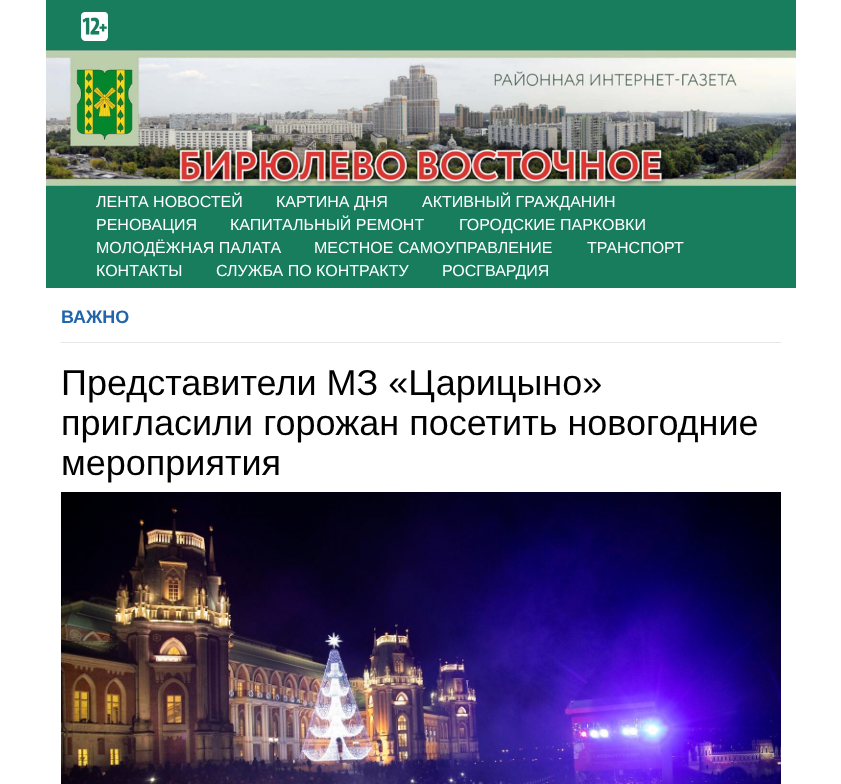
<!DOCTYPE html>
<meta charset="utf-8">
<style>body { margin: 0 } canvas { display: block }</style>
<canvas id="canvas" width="841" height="784"></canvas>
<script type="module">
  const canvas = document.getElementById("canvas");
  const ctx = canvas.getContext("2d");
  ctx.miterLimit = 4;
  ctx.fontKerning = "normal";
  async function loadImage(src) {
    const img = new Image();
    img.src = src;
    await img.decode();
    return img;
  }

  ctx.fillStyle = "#ffffff";
  ctx.fillRect(0, 0, 841, 784);
  ctx.fillStyle = "#177d5d";
  ctx.fillRect(46, 0, 750, 50);
  ctx.drawImage(await loadImage("img1.png"), 81, 12, 27, 29);
  ctx.drawImage(await loadImage("img2.png"), 46, 50, 750, 136);
  ctx.fillRect(46, 186, 750, 102);
  ctx.font = "16px Liberation Sans";
  ctx.fillStyle = "#ffffff";
  ctx.fillText("ЛЕНТА НОВОСТЕЙ", 96, 207);
  ctx.fillText("КАРТИНА ДНЯ", 276, 207);
  ctx.fillText("АКТИВНЫЙ ГРАЖДАНИН", 422, 207);
  ctx.fillText("РЕНОВАЦИЯ", 96, 230);
  ctx.fillText("КАПИТАЛЬНЫЙ РЕМОНТ", 230, 230);
  ctx.fillText("ГОРОДСКИЕ ПАРКОВКИ", 459, 230);
  ctx.fillText("МОЛОДЁЖНАЯ ПАЛАТА", 96, 253);
  ctx.fillText("МЕСТНОЕ САМОУПРАВЛЕНИЕ", 314, 253);
  ctx.fillText("ТРАНСПОРТ", 587, 253);
  ctx.fillText("КОНТАКТЫ", 96, 276);
  ctx.fillText("СЛУЖБА ПО КОНТРАКТУ", 216, 276);
  ctx.fillText("РОСГВАРДИЯ", 442, 276);
  ctx.fillStyle = "#e6e6e6";
  ctx.fillRect(61, 342, 720, 1);
  ctx.font = "bold 18px Liberation Sans";
  ctx.fillStyle = "#2265ab";
  ctx.fillText("ВАЖНО", 61, 323);
  ctx.font = "36px Liberation Sans";
  ctx.fillStyle = "#000000";
  ctx.fillText("Представители МЗ «Царицыно»", 61, 395);
  ctx.fillText("пригласили горожан посетить новогодние", 61, 435);
  ctx.fillText("мероприятия", 61, 475);
  ctx.drawImage(await loadImage("img3.png"), 61, 492, 720, 292);
</script>
